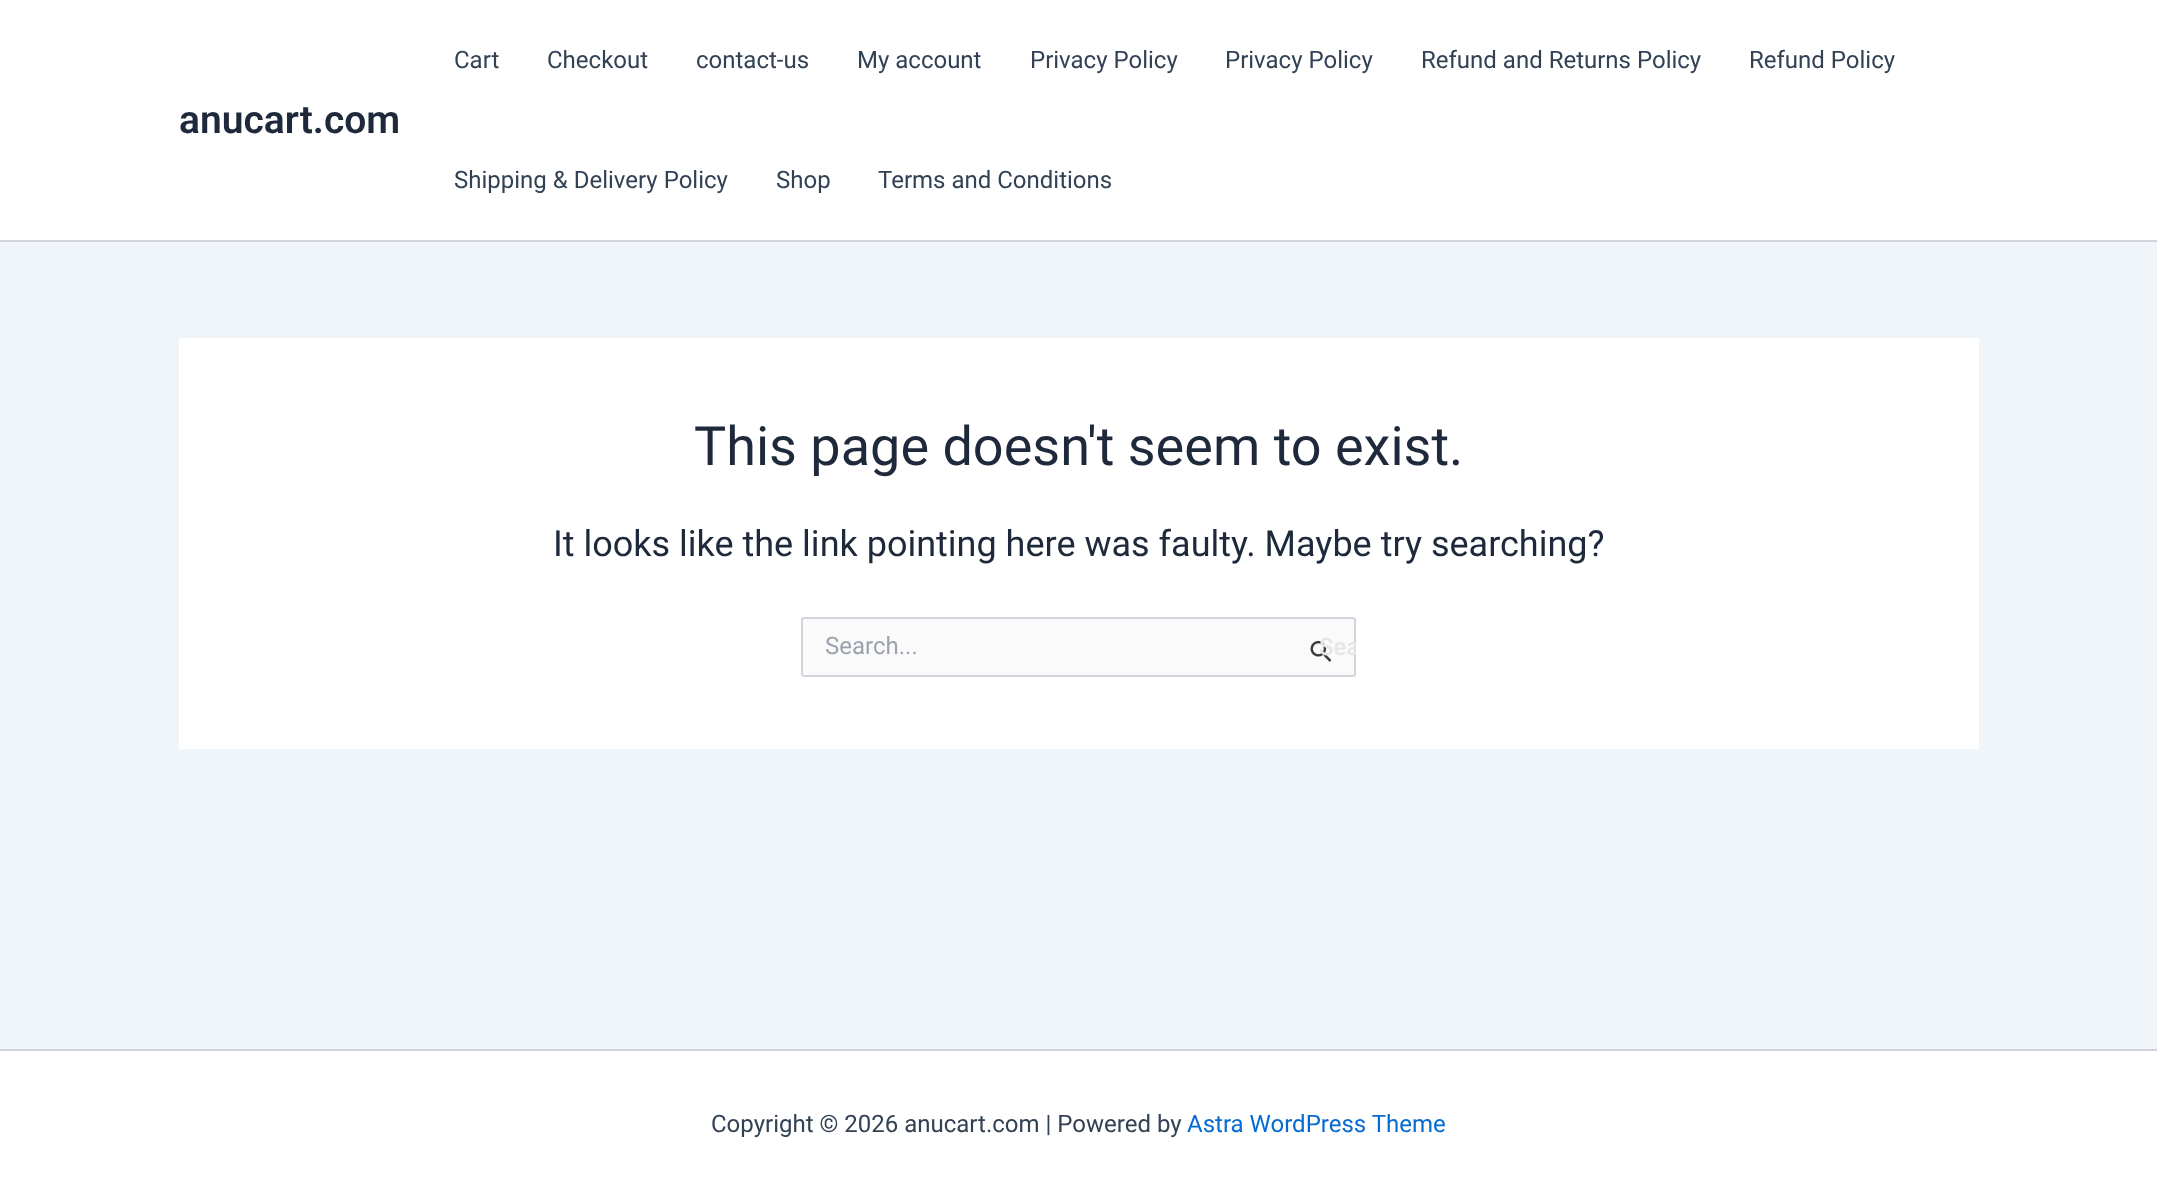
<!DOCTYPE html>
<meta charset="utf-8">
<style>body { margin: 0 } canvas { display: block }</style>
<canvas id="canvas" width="2157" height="1199"></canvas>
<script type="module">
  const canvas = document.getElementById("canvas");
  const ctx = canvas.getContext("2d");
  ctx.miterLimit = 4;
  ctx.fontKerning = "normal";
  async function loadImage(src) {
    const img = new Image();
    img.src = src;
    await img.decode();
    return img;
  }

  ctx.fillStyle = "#f0f5fa";
  ctx.fillRect(0, 0, 2157, 1199);
  ctx.fillStyle = "#ffffff";
  ctx.fillRect(0, 0, 2157, 240);
  ctx.fillStyle = "#d1d5db";
  ctx.fillRect(0, 240, 2157, 2);
  ctx.font = "600 39px Roboto";
  ctx.fillStyle = "#1e293b";
  ctx.fillText("anucart.com", 179, 133);
  ctx.font = "24px Roboto";
  ctx.fillStyle = "#334155";
  ctx.fillText("Cart", 454, 68);
  ctx.fillText("Checkout", 547, 68);
  ctx.fillText("contact-us", 696, 68);
  ctx.fillText("My account", 857, 68);
  ctx.fillText("Privacy Policy", 1030, 68);
  ctx.fillText("Privacy Policy", 1225, 68);
  ctx.fillText("Refund and Returns Policy", 1421, 68);
  ctx.fillText("Refund Policy", 1749, 68);
  ctx.fillText("Shipping & Delivery Policy", 454, 188);
  ctx.fillText("Shop", 776, 188);
  ctx.fillText("Terms and Conditions", 878, 188);
  ctx.fillStyle = "#ffffff";
  ctx.fillRect(179, 338, 1800, 411);
  ctx.font = "54px Roboto";
  ctx.fillStyle = "#1e293b";
  ctx.fillText("This page doesn't seem to exist.", 694, 465);
  ctx.font = "36px Roboto";
  ctx.fillText("It looks like the link pointing here was faulty. Maybe try searching?", 553, 556);
  ctx.fillStyle = "#fafafa";
  ctx.beginPath();
  ctx.roundRect(802, 618, 553, 58, 2);
  ctx.fill();
  ctx.strokeStyle = "#d1d5db";
  ctx.lineWidth = 2;
  ctx.stroke();
  ctx.font = "24px Roboto";
  ctx.fillStyle = "#9ca3af";
  ctx.fillText("Search...", 825, 654);
  ctx.drawImage(await loadImage("img1.png"), 1310, 641, 21, 21);
  ctx.save();
  ctx.beginPath();
  ctx.roundRect(1289, 617, 67, 63, 3);
  ctx.clip();
  ctx.font = "500 24px Roboto";
  ctx.fillStyle = "#e6e6e6";
  ctx.fillText("Sea", 1319, 655);
  ctx.restore();
  ctx.fillStyle = "#ffffff";
  ctx.fillRect(0, 1051, 2157, 148);
  ctx.fillStyle = "#d1d5db";
  ctx.fillRect(0, 1049, 2157, 2);
  ctx.fillStyle = "#334155";
  ctx.fillText("Copyright © 2026 anucart.com | Powered by", 711, 1132);
  ctx.fillStyle = "#046bd2";
  ctx.fillText("Astra WordPress Theme", 1187, 1132);
</script>
